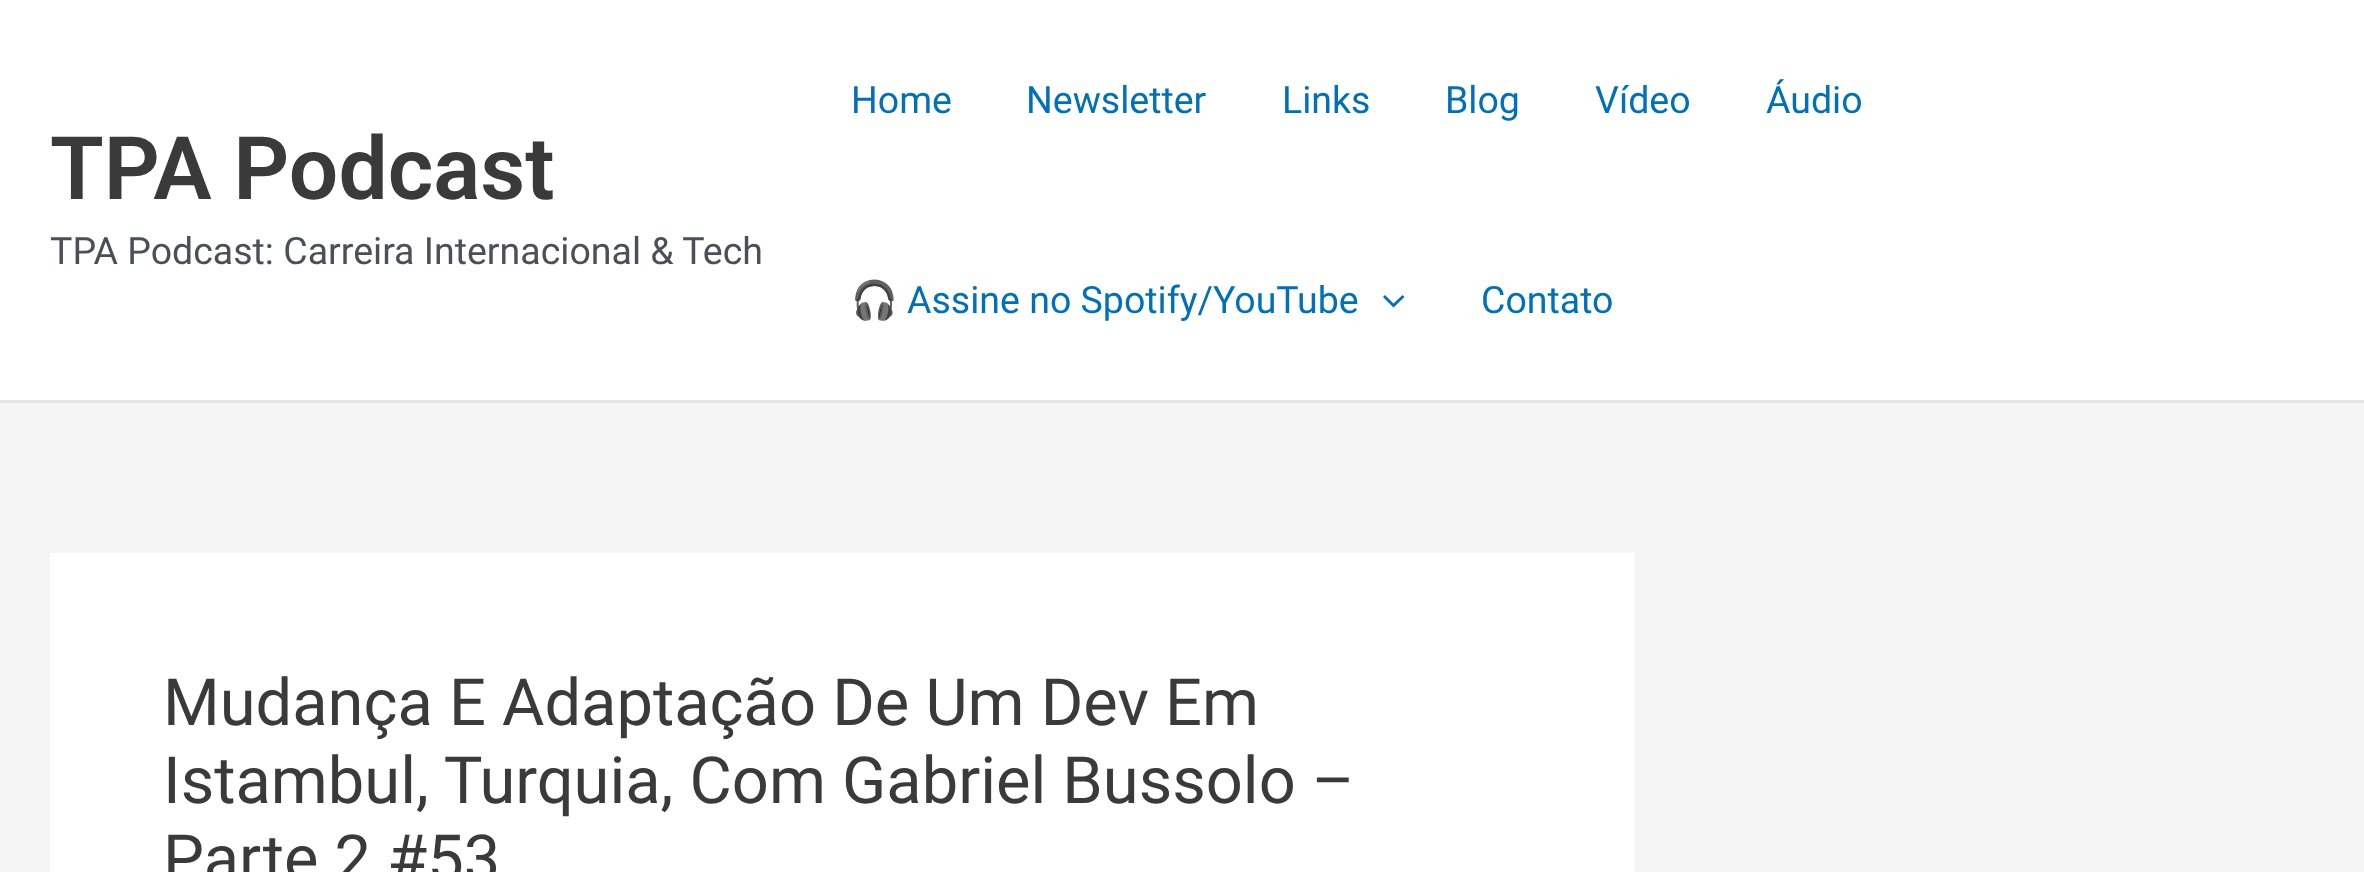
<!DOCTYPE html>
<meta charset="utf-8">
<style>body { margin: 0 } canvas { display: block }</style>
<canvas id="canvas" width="2364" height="872"></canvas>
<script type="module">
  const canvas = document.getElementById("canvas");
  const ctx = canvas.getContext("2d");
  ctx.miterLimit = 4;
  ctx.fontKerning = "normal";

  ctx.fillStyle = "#f5f5f5";
  ctx.fillRect(0, 0, 2364, 872);
  ctx.fillStyle = "#ffffff";
  ctx.fillRect(0, 0, 2364, 400);
  ctx.fillStyle = "#e5e5e5";
  ctx.fillRect(0, 400, 2364, 3);
  ctx.font = "600 87.5px Roboto";
  ctx.fillStyle = "#3a3a3a";
  ctx.fillText("TPA Podcast", 50, 199);
  ctx.font = "37.5px Roboto";
  ctx.fillStyle = "#4b4f58";
  ctx.fillText("TPA Podcast: Carreira Internacional & Tech", 50, 264);
  ctx.fillStyle = "#0170b9";
  ctx.fillText("Home", 851, 113);
  ctx.fillText("Newsletter", 1026, 113);
  ctx.fillText("Links", 1282, 113);
  ctx.fillText("Blog", 1445, 113);
  ctx.fillText("Vídeo", 1595, 113);
  ctx.fillText("Áudio", 1766, 113);
  ctx.font = "37.5px Noto Color Emoji";
  ctx.fillText("🎧", 851, 313);
  ctx.font = "37.5px Roboto";
  ctx.fillText("Assine no Spotify/YouTube", 907, 313);
  ctx.beginPath();
  ctx.moveTo(1383, 297);
  ctx.lineTo(1393.5, 307.5);
  ctx.lineTo(1404.5, 297);
  ctx.lineTo(1402.5, 295);
  ctx.lineTo(1393.5, 303.5);
  ctx.lineTo(1385, 295);
  ctx.closePath();
  ctx.fill();
  ctx.fillText("Contato", 1481, 313);
  ctx.fillStyle = "#ffffff";
  ctx.fillRect(50, 553, 1585, 319);
  ctx.font = "65px Roboto";
  ctx.fillStyle = "#3a3a3a";
  ctx.fillText("Mudança E Adaptação De Um Dev Em", 163, 725);
  ctx.fillText("Istambul, Turquia, Com Gabriel Bussolo –", 163, 803);
  ctx.fillText("Parte 2 #53", 163, 881);
</script>
